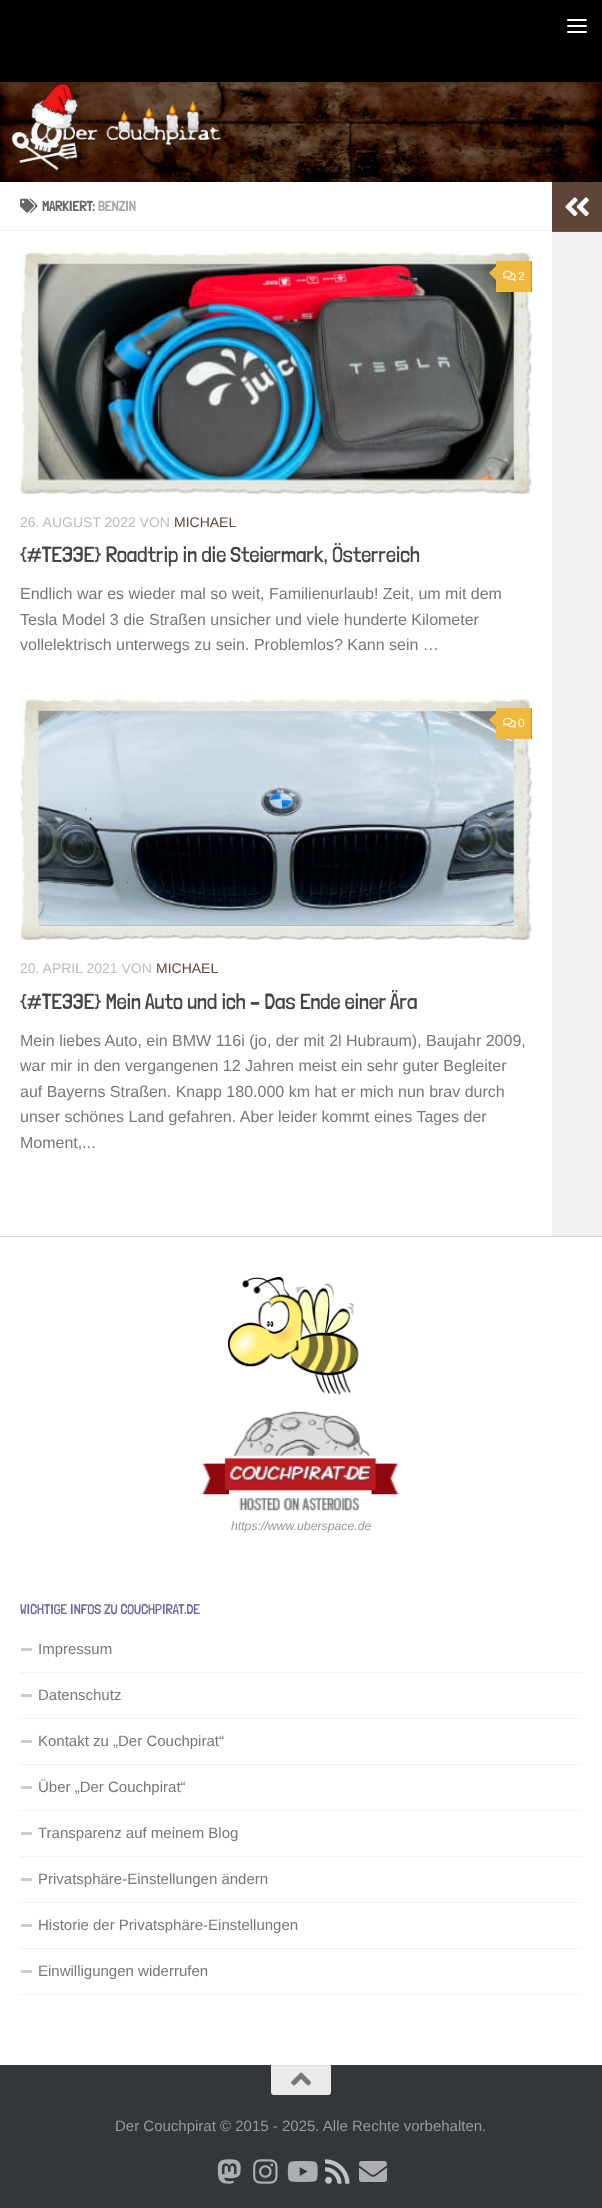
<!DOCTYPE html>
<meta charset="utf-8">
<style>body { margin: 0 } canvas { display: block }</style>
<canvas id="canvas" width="602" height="2208"></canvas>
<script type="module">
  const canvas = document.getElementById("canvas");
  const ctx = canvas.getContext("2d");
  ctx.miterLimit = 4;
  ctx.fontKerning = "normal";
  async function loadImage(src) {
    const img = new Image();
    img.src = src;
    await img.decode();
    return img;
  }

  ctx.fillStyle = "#eaeaea";
  ctx.fillRect(0, 0, 602, 2208);
  ctx.fillStyle = "#000000";
  ctx.fillRect(0, 0, 602, 82);
  ctx.fillStyle = "#ffffff";
  ctx.beginPath();
  ctx.roundRect(567, 19, 20, 2, 1);
  ctx.fill();
  ctx.beginPath();
  ctx.roundRect(567, 25, 20, 2, 1);
  ctx.fill();
  ctx.beginPath();
  ctx.roundRect(567, 31, 20, 2, 1);
  ctx.fill();
  ctx.fillStyle = "rgba(0, 0, 0, 0.1)";
  ctx.filter = "blur(0.5px)";
  ctx.beginPath();
  ctx.rect(0, 183, 602, 1054);
  ctx.fill();
  ctx.filter = "none";
  ctx.drawImage(await loadImage("img1.png"), 0, 82, 602, 100);
  ctx.fillStyle = "#ffffff";
  ctx.fillRect(0, 182, 552, 1054);
  ctx.fillStyle = "#eeeeee";
  ctx.fillRect(0, 230, 552, 1);
  ctx.drawImage(await loadImage("img2.png"), 20, 198, 18, 15);
  ctx.font = "bold 14px Londrina Solid";
  ctx.fillStyle = "#666666";
  ctx.fillText("MARKIERT:", 42, 211);
  ctx.fillStyle = "#aaaaaa";
  ctx.fillText("BENZIN", 98, 211);
  ctx.drawImage(await loadImage("img3.png"), 20, 251, 512, 243);
  ctx.fillStyle = "#efb93f";
  ctx.fillRect(496, 261, 35, 31);
  ctx.fillStyle = "#bf9432";
  ctx.fillRect(531, 261, 1, 31);
  ctx.fillStyle = "#efb93f";
  ctx.beginPath();
  ctx.moveTo(498, 264);
  ctx.lineTo(498, 282);
  ctx.lineTo(489, 273);
  ctx.closePath();
  ctx.fill();
  ctx.drawImage(await loadImage("img4.png"), 503, 270, 13, 11);
  ctx.font = "12px Liberation Sans";
  ctx.fillStyle = "#ffffff";
  ctx.fillText("2", 518, 280);
  ctx.font = "14px Liberation Sans";
  ctx.fillStyle = "#bbbbbb";
  ctx.fillText("26. AUGUST 2022 VON", 20, 527);
  ctx.fillStyle = "#5f4438";
  ctx.fillText("MICHAEL", 174, 527);
  ctx.font = "300 22px Londrina Solid";
  ctx.fillStyle = "#444444";
  ctx.fillText("{#TE33E} Roadtrip in die Steiermark, Österreich", 20, 562);
  ctx.font = "16px Liberation Sans";
  ctx.fillStyle = "#777777";
  ctx.fillText("Endlich war es wieder mal so weit, Familienurlaub! Zeit, um mit dem", 20, 599);
  ctx.fillText("Tesla Model 3 die Straßen unsicher und viele hunderte Kilometer", 20, 625);
  ctx.fillText("vollelektrisch unterwegs zu sein. Problemlos? Kann sein …", 20, 650);
  ctx.drawImage(await loadImage("img5.png"), 20, 698, 512, 242);
  ctx.fillStyle = "#efb93f";
  ctx.fillRect(496, 708, 35, 31);
  ctx.fillStyle = "#bf9432";
  ctx.fillRect(531, 708, 1, 31);
  ctx.fillStyle = "#efb93f";
  ctx.beginPath();
  ctx.moveTo(498, 711);
  ctx.lineTo(498, 729);
  ctx.lineTo(489, 720);
  ctx.closePath();
  ctx.fill();
  ctx.drawImage(await loadImage("img4.png"), 503, 717, 13, 11);
  ctx.font = "12px Liberation Sans";
  ctx.fillStyle = "#ffffff";
  ctx.fillText("0", 518, 727);
  ctx.font = "14px Liberation Sans";
  ctx.fillStyle = "#bbbbbb";
  ctx.fillText("20. APRIL 2021 VON", 20, 973);
  ctx.fillStyle = "#5f4438";
  ctx.fillText("MICHAEL", 156, 973);
  ctx.font = "300 22px Londrina Solid";
  ctx.fillStyle = "#444444";
  ctx.fillText("{#TE33E} Mein Auto und ich – Das Ende einer Ära", 20, 1009);
  ctx.font = "16px Liberation Sans";
  ctx.fillStyle = "#777777";
  ctx.fillText("Mein liebes Auto, ein BMW 116i (jo, der mit 2l Hubraum), Baujahr 2009,", 20, 1046);
  ctx.fillText("war mir in den vergangenen 12 Jahren meist ein sehr guter Begleiter", 20, 1071);
  ctx.fillText("auf Bayerns Straßen. Knapp 180.000 km hat er mich nun brav durch", 20, 1097);
  ctx.fillText("unser schönes Land gefahren. Aber leider kommt eines Tages der", 20, 1122);
  ctx.fillText("Moment,...", 20, 1148);
  ctx.fillStyle = "#5f4438";
  ctx.fillRect(552, 182, 50, 49);
  ctx.fillStyle = "#6f574c";
  ctx.fillRect(552, 231, 50, 1);
  ctx.drawImage(await loadImage("img6.png"), 565, 197, 24, 20);
  ctx.fillStyle = "#f0f0f0";
  ctx.fillRect(552, 232, 50, 1004);
  ctx.fillStyle = "#ffffff";
  ctx.fillRect(0, 1237, 602, 828);
  ctx.drawImage(await loadImage("img7.png"), 228, 1277, 131, 118);
  ctx.drawImage(await loadImage("img8.png"), 201, 1411, 199, 100);
  ctx.font = "italic 12.25px Liberation Sans";
  ctx.fillStyle = "#999999";
  ctx.fillText("https://www.uberspace.de", 231, 1530);
  ctx.font = "300 14px Londrina Solid";
  ctx.fillStyle = "#666699";
  ctx.fillText("WICHTIGE INFOS ZU COUCHPIRAT.DE", 20, 1614);
  ctx.fillStyle = "#f2f2f2";
  ctx.fillRect(20, 1672, 562, 1);
  ctx.fillStyle = "#cccccc";
  ctx.fillRect(21, 1648, 11, 3);
  ctx.font = "15px Liberation Sans";
  ctx.fillStyle = "#777777";
  ctx.fillText("Impressum", 38, 1654);
  ctx.fillStyle = "#f2f2f2";
  ctx.fillRect(20, 1718, 562, 1);
  ctx.fillStyle = "#cccccc";
  ctx.fillRect(21, 1694, 11, 3);
  ctx.fillStyle = "#777777";
  ctx.fillText("Datenschutz", 38, 1700);
  ctx.fillStyle = "#f2f2f2";
  ctx.fillRect(20, 1764, 562, 1);
  ctx.fillStyle = "#cccccc";
  ctx.fillRect(21, 1740, 11, 3);
  ctx.fillStyle = "#777777";
  ctx.fillText("Kontakt zu „Der Couchpirat“", 38, 1746);
  ctx.fillStyle = "#f2f2f2";
  ctx.fillRect(20, 1810, 562, 1);
  ctx.fillStyle = "#cccccc";
  ctx.fillRect(21, 1786, 11, 3);
  ctx.fillStyle = "#777777";
  ctx.fillText("Über „Der Couchpirat“", 38, 1792);
  ctx.fillStyle = "#f2f2f2";
  ctx.fillRect(20, 1856, 562, 1);
  ctx.fillStyle = "#cccccc";
  ctx.fillRect(21, 1832, 11, 3);
  ctx.fillStyle = "#777777";
  ctx.fillText("Transparenz auf meinem Blog", 38, 1838);
  ctx.fillStyle = "#f2f2f2";
  ctx.fillRect(20, 1902, 562, 1);
  ctx.fillStyle = "#cccccc";
  ctx.fillRect(21, 1878, 11, 3);
  ctx.fillStyle = "#777777";
  ctx.fillText("Privatsphäre-Einstellungen ändern", 38, 1884);
  ctx.fillStyle = "#f2f2f2";
  ctx.fillRect(20, 1948, 562, 1);
  ctx.fillStyle = "#cccccc";
  ctx.fillRect(21, 1924, 11, 3);
  ctx.fillStyle = "#777777";
  ctx.fillText("Historie der Privatsphäre-Einstellungen", 38, 1930);
  ctx.fillStyle = "#f2f2f2";
  ctx.fillRect(20, 1994, 562, 1);
  ctx.fillStyle = "#cccccc";
  ctx.fillRect(21, 1970, 11, 3);
  ctx.fillStyle = "#777777";
  ctx.fillText("Einwilligungen widerrufen", 38, 1976);
  ctx.fillStyle = "#33363b";
  ctx.fillRect(0, 2065, 602, 143);
  ctx.fillStyle = "#eaeaea";
  ctx.beginPath();
  ctx.roundRect(271, 2065, 60, 30, [0, 0, 3, 3]);
  ctx.fill();
  ctx.fillStyle = "#dedede";
  ctx.fillRect(271, 2065, 60, 1);
  ctx.drawImage(await loadImage("img9.png"), 291, 2072, 20, 14);
  ctx.fillStyle = "#999999";
  ctx.fillText("Der Couchpirat © 2015 - 2025. Alle Rechte vorbehalten.", 115, 2131);
  ctx.drawImage(await loadImage("img10.png"), 217, 2159, 24, 25);
  ctx.drawImage(await loadImage("img11.png"), 253, 2159, 25, 25);
  ctx.drawImage(await loadImage("img12.png"), 287, 2161, 31, 21);
  ctx.drawImage(await loadImage("img13.png"), 325, 2159, 25, 25);
  ctx.drawImage(await loadImage("img14.png"), 359, 2161, 28, 21);
</script>
